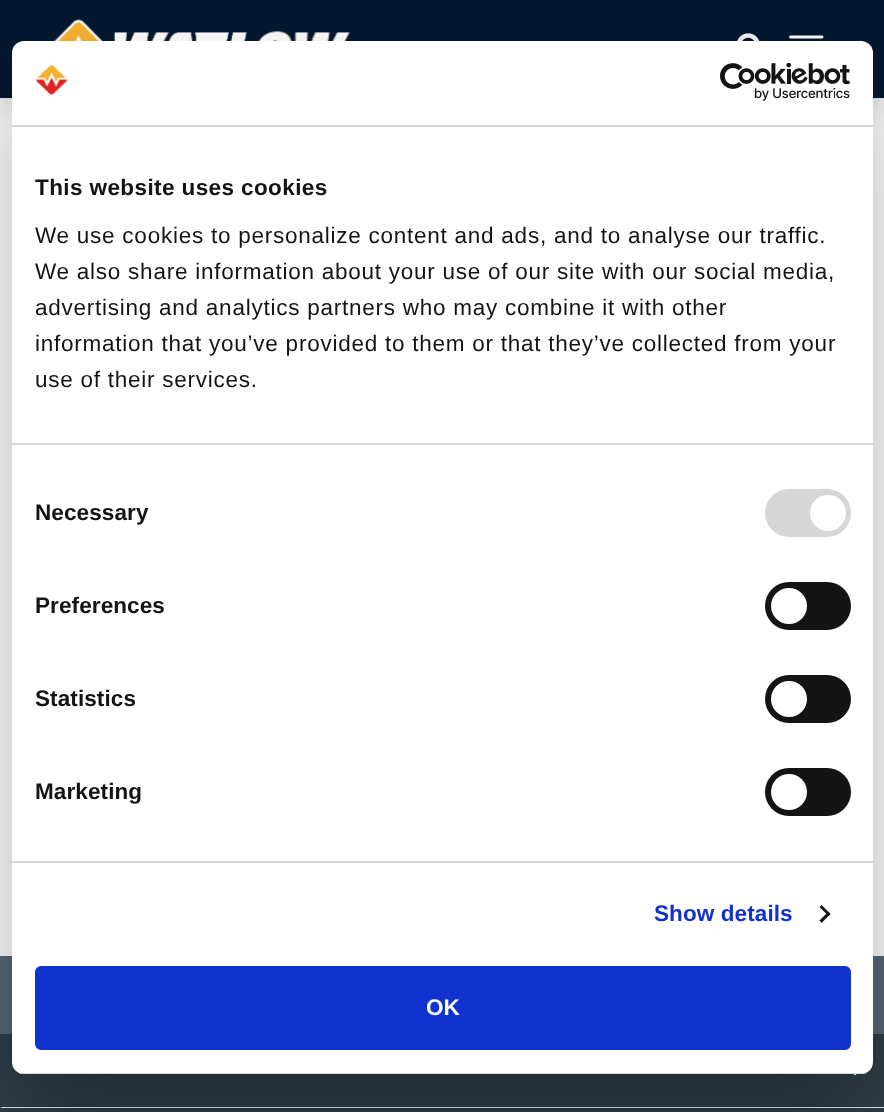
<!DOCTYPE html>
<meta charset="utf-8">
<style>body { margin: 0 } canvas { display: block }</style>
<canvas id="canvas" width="884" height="1112"></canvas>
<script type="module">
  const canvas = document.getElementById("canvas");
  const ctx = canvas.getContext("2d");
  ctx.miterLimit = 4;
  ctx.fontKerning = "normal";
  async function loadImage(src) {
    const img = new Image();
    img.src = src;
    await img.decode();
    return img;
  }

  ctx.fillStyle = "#ffffff";
  ctx.fillRect(0, 0, 884, 1112);
  ctx.fillStyle = "rgba(35, 39, 43, 0.15)";
  ctx.filter = "blur(12px)";
  ctx.beginPath();
  ctx.rect(0, 12, 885, 98);
  ctx.fill();
  ctx.filter = "none";
  ctx.fillStyle = "#041830";
  ctx.fillRect(0, 0, 884, 98);
  ctx.drawImage(await loadImage("img1.png"), 54, 19, 296, 22);
  ctx.drawImage(await loadImage("img2.png"), 737, 33, 23, 8);
  ctx.beginPath();
  ctx.moveTo(790.5, 37);
  ctx.lineTo(822, 37);
  ctx.moveTo(790.5, 48.5);
  ctx.lineTo(822, 48.5);
  ctx.moveTo(790.5, 60);
  ctx.lineTo(822, 60);
  ctx.strokeStyle = "#ffffff";
  ctx.lineWidth = 2.9;
  ctx.lineCap = "round";
  ctx.stroke();
  ctx.fillStyle = "#576777";
  ctx.fillRect(0, 956, 884, 78);
  ctx.fillStyle = "#303e48";
  ctx.fillRect(0, 1034, 884, 78);
  ctx.fillStyle = "#e5e7eb";
  ctx.beginPath();
  ctx.moveTo(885, 1108);
  ctx.lineTo(0, 1108);
  ctx.lineTo(2, 1107);
  ctx.lineTo(884, 1107);
  ctx.closePath();
  ctx.fill();
  ctx.drawImage(await loadImage("img3.png"), 853, 1074, 4, 2);
  ctx.fillStyle = "rgba(0, 0, 0, 0.3)";
  ctx.filter = "blur(51px)";
  ctx.beginPath();
  ctx.roundRect(12, 89, 861, 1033, 12);
  ctx.fill();
  ctx.filter = "none";
  ctx.fillStyle = "#ffffff";
  ctx.beginPath();
  ctx.roundRect(12, 41, 861, 1033, 12);
  ctx.fill();
  ctx.fillStyle = "#d6d6d6";
  ctx.fillRect(12, 125, 861, 2);
  ctx.drawImage(await loadImage("img4.png"), 35, 65, 33, 31);
  ctx.drawImage(await loadImage("img5.png"), 720, 63, 130, 38);
  ctx.fillRect(12, 443, 861, 2);
  ctx.letterSpacing = "0.4px";
  ctx.font = "bold 22.5px Liberation Sans";
  ctx.fillStyle = "#141414";
  ctx.fillText("This website uses cookies", 35, 195);
  ctx.letterSpacing = "0.75px";
  ctx.font = "22.5px Liberation Sans";
  ctx.fillText("We use cookies to personalize content and ads, and to analyse our traffic.", 35, 243);
  ctx.fillText("We also share information about your use of our site with our social media,", 35, 279);
  ctx.fillText("advertising and analytics partners who may combine it with other", 35, 315);
  ctx.fillText("information that you’ve provided to them or that they’ve collected from your", 35, 351);
  ctx.fillText("use of their services.", 35, 387);
  ctx.fillStyle = "#d6d6d6";
  ctx.fillRect(12, 861, 861, 2);
  ctx.letterSpacing = "0.1px";
  ctx.font = "bold 22.5px Liberation Sans";
  ctx.fillStyle = "#141414";
  ctx.fillText("Necessary", 35, 520);
  ctx.fillStyle = "#d6d6d6";
  ctx.beginPath();
  ctx.roundRect(765, 489, 86, 48, 24);
  ctx.fill();
  ctx.fillStyle = "#ffffff";
  ctx.beginPath();
  ctx.arc(828, 513, 18, 0, Math.PI * 2);
  ctx.fill();
  ctx.fillStyle = "#141414";
  ctx.fillText("Preferences", 35, 613);
  ctx.beginPath();
  ctx.roundRect(765, 582, 86, 48, 24);
  ctx.fill();
  ctx.fillStyle = "#ffffff";
  ctx.beginPath();
  ctx.arc(789, 606, 18, 0, Math.PI * 2);
  ctx.fill();
  ctx.fillStyle = "#141414";
  ctx.fillText("Statistics", 35, 706);
  ctx.beginPath();
  ctx.roundRect(765, 675, 86, 48, 24);
  ctx.fill();
  ctx.fillStyle = "#ffffff";
  ctx.beginPath();
  ctx.arc(789, 699, 18, 0, Math.PI * 2);
  ctx.fill();
  ctx.fillStyle = "#141414";
  ctx.fillText("Marketing", 35, 799);
  ctx.beginPath();
  ctx.roundRect(765, 768, 86, 48, 24);
  ctx.fill();
  ctx.fillStyle = "#ffffff";
  ctx.beginPath();
  ctx.arc(789, 792, 18, 0, Math.PI * 2);
  ctx.fill();
  ctx.fillStyle = "#1032cf";
  ctx.fillText("Show details", 654, 921);
  ctx.fillStyle = "#141414";
  ctx.beginPath();
  ctx.moveTo(821.5, 905);
  ctx.lineTo(830.5, 914);
  ctx.lineTo(828.5, 916);
  ctx.lineTo(819.5, 907);
  ctx.closePath();
  ctx.fill();
  ctx.beginPath();
  ctx.moveTo(828.5, 911.5);
  ctx.lineTo(830.5, 914);
  ctx.lineTo(821.5, 923);
  ctx.lineTo(819.5, 920.5);
  ctx.closePath();
  ctx.fill();
  ctx.save();
  ctx.beginPath();
  ctx.roundRect(12, 41, 861, 1033, 12);
  ctx.clip();
  ctx.fillStyle = "#d6d6d6";
  ctx.fillRect(12, 1073, 861, 1);
  ctx.restore();
  ctx.fillStyle = "#1032cf";
  ctx.beginPath();
  ctx.roundRect(36.5, 967.5, 813, 81, 4.5);
  ctx.fill();
  ctx.strokeStyle = "#1032cf";
  ctx.lineWidth = 3;
  ctx.stroke();
  ctx.letterSpacing = "0px";
  ctx.fillStyle = "#ffffff";
  ctx.fillText("OK", 426, 1015);
</script>
